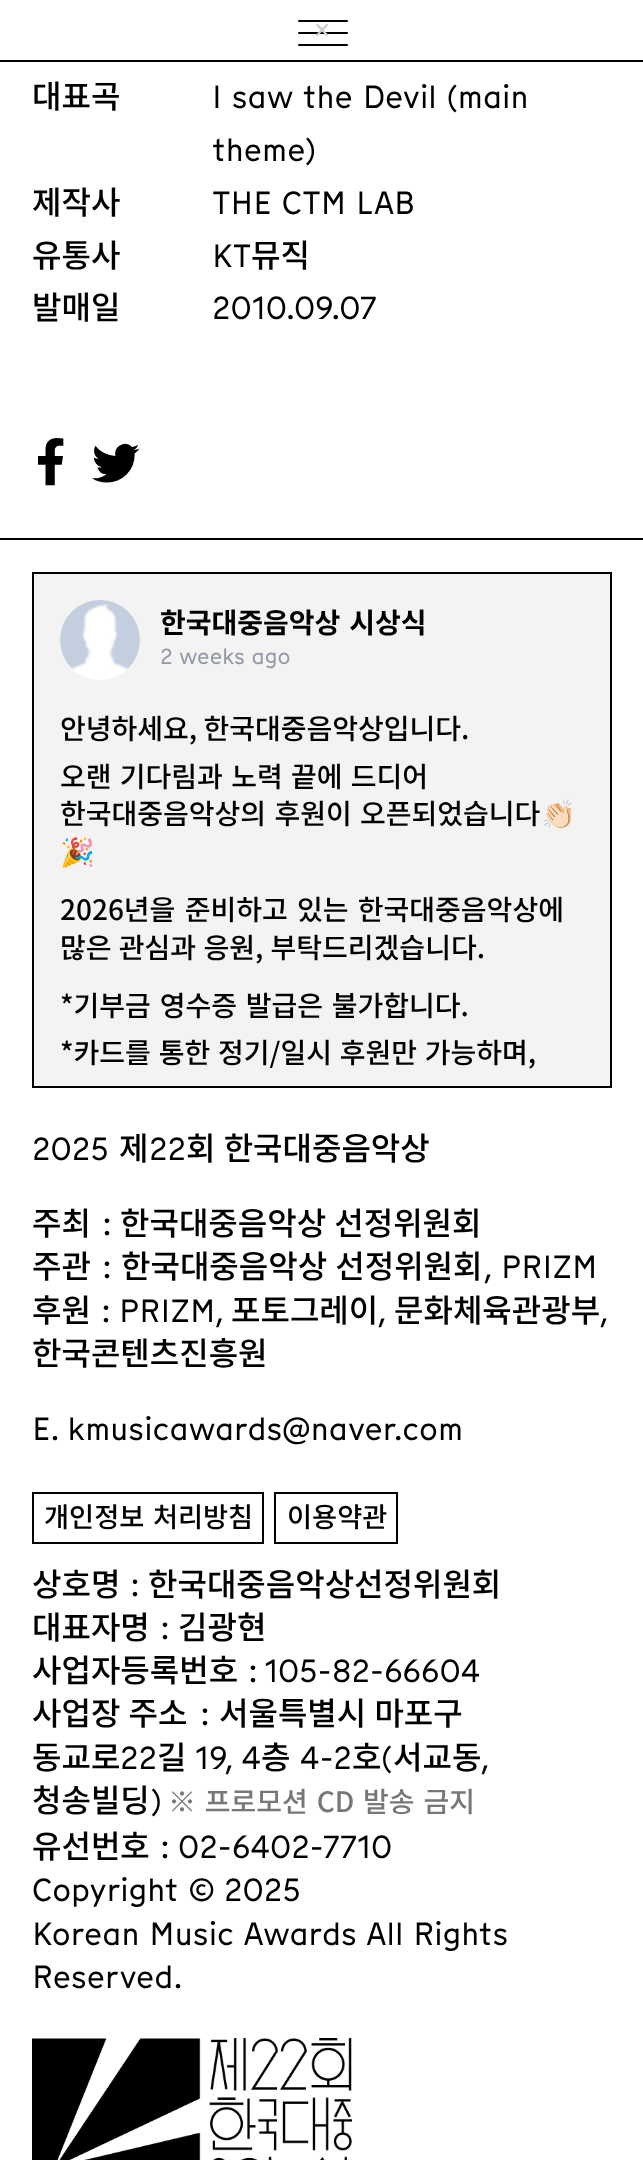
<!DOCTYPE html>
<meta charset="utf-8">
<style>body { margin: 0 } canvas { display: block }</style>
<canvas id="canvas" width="643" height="2160"></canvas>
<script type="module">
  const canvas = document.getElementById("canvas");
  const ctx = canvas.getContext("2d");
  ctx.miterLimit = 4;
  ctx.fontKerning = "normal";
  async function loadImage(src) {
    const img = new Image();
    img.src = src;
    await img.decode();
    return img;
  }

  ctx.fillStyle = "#ffffff";
  ctx.fillRect(0, 0, 643, 2160);
  ctx.fillStyle = "#000000";
  ctx.fillRect(0, 60, 643, 2);
  ctx.beginPath();
  ctx.roundRect(298, 32, 50, 2, 1);
  ctx.fill();
  ctx.beginPath();
  ctx.roundRect(298, 20, 50, 2, 1);
  ctx.fill();
  ctx.beginPath();
  ctx.roundRect(298, 44, 50, 2, 1);
  ctx.fill();
  ctx.font = "27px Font";
  ctx.fillStyle = "#cccccc";
  ctx.fillText("×", 314, 39);
  ctx.font = "500 32px Noto Sans KR";
  ctx.fillStyle = "#000000";
  ctx.fillText("대표곡", 32, 108);
  ctx.font = "32px Font";
  ctx.fillText("I saw the Devil (main", 212, 108);
  ctx.fillText("theme)", 212, 161);
  ctx.font = "500 32px Noto Sans KR";
  ctx.fillText("제작사", 32, 214);
  ctx.font = "32px Font";
  ctx.fillText("THE CTM LAB", 212, 214);
  ctx.font = "500 32px Noto Sans KR";
  ctx.fillText("유통사", 32, 267);
  ctx.font = "32px Font";
  ctx.fillText("KT", 212, 267);
  ctx.font = "500 32px Noto Sans KR";
  ctx.fillText("뮤직", 251, 267);
  ctx.fillText("발매일", 32, 319);
  ctx.font = "32px Font";
  ctx.fillText("2010.09.07", 212, 319);
  ctx.drawImage(await loadImage("img1.png"), 38, 438, 26, 48);
  ctx.drawImage(await loadImage("img2.png"), 92, 443, 48, 40);
  ctx.fillRect(0, 538, 643, 2);
  ctx.fillStyle = "#f3f3f3";
  ctx.beginPath();
  ctx.rect(33, 573, 578, 514);
  ctx.fill();
  ctx.strokeStyle = "#000000";
  ctx.lineWidth = 2;
  ctx.stroke();
  ctx.drawImage(await loadImage("img3.png"), 60, 600, 80, 80);
  ctx.wordSpacing = "2.5px";
  ctx.font = "bold 28px Noto Sans KR";
  ctx.fillStyle = "#000000";
  ctx.fillText("한국대중음악상 시상식", 160, 633);
  ctx.wordSpacing = "0px";
  ctx.font = "22px Font";
  ctx.fillStyle = "#9197a3";
  ctx.fillText("2 weeks ago", 160, 664);
  ctx.font = "500 28px Noto Sans KR";
  ctx.fillStyle = "#000000";
  ctx.fillText("안녕하세요, 한국대중음악상입니다.", 60, 739);
  ctx.wordSpacing = "2px";
  ctx.fillText("오랜 기다림과 노력 끝에 드디어", 60, 787);
  ctx.fillText("한국대중음악상의 후원이 오픈되었습니다", 60, 824);
  ctx.wordSpacing = "0px";
  ctx.font = "28px Noto Color Emoji";
  ctx.fillText("👏🏻", 541, 824);
  ctx.fillText("🎉", 60, 862);
  ctx.wordSpacing = "3px";
  ctx.font = "500 28px Noto Sans KR";
  ctx.fillText("2026년을 준비하고 있는 한국대중음악상에", 60, 920);
  ctx.wordSpacing = "1px";
  ctx.fillText("많은 관심과 응원, 부탁드리겠습니다.", 60, 958);
  ctx.wordSpacing = "2.5px";
  ctx.fillText("*기부금 영수증 발급은 불가합니다.", 60, 1016);
  ctx.wordSpacing = "1.5px";
  ctx.fillText("*카드를 통한 정기/일시 후원만 가능하며,", 60, 1063);
  ctx.wordSpacing = "0px";
  ctx.font = "32px Font";
  ctx.fillText("2025", 32, 1160);
  ctx.font = "500 32px Noto Sans KR";
  ctx.fillText("제", 119, 1160);
  ctx.font = "32px Font";
  ctx.fillText("22", 149, 1160);
  ctx.wordSpacing = "1px";
  ctx.font = "500 32px Noto Sans KR";
  ctx.fillText("회 한국대중음악상", 186, 1160);
  ctx.wordSpacing = "0px";
  ctx.fillText("주최", 32, 1235);
  ctx.font = "32px Font";
  ctx.fillText(":", 102, 1235);
  ctx.wordSpacing = "1px";
  ctx.font = "500 32px Noto Sans KR";
  ctx.fillText("한국대중음악상 선정위원회", 120, 1235);
  ctx.wordSpacing = "0px";
  ctx.fillText("주관", 32, 1278);
  ctx.font = "32px Font";
  ctx.fillText(":", 102, 1278);
  ctx.wordSpacing = "1px";
  ctx.font = "500 32px Noto Sans KR";
  ctx.fillText("한국대중음악상 선정위원회", 121, 1278);
  ctx.wordSpacing = "0px";
  ctx.font = "32px Font";
  ctx.fillText(",", 484, 1278);
  ctx.fillText("PRIZM", 501, 1278);
  ctx.font = "500 32px Noto Sans KR";
  ctx.fillText("후원", 32, 1322);
  ctx.font = "32px Font";
  ctx.fillText(":", 101, 1322);
  ctx.fillText("PRIZM,", 119, 1322);
  ctx.font = "500 32px Noto Sans KR";
  ctx.fillText("포토그레이", 231, 1322);
  ctx.font = "32px Font";
  ctx.fillText(",", 378, 1322);
  ctx.font = "500 32px Noto Sans KR";
  ctx.fillText("문화체육관광부", 394, 1322);
  ctx.font = "32px Font";
  ctx.fillText(",", 600, 1322);
  ctx.font = "500 32px Noto Sans KR";
  ctx.fillText("한국콘텐츠진흥원", 32, 1365);
  ctx.font = "32px Font";
  ctx.fillText("E. kmusicawards@naver.com", 32, 1440);
  ctx.strokeRect(33, 1493, 230, 50);
  ctx.wordSpacing = "2.5px";
  ctx.font = "500 27.25px Noto Sans KR";
  ctx.fillText("개인정보 처리방침", 44, 1527);
  ctx.strokeRect(275, 1493, 122, 50);
  ctx.wordSpacing = "0px";
  ctx.fillText("이용약관", 287, 1527);
  ctx.font = "500 32px Noto Sans KR";
  ctx.fillText("상호명", 32, 1596);
  ctx.font = "32px Font";
  ctx.fillText(":", 130, 1596);
  ctx.font = "500 32px Noto Sans KR";
  ctx.fillText("한국대중음악상선정위원회", 148, 1596);
  ctx.fillText("대표자명", 32, 1639);
  ctx.font = "32px Font";
  ctx.fillText(":", 160, 1639);
  ctx.font = "500 32px Noto Sans KR";
  ctx.fillText("김광현", 178, 1639);
  ctx.fillText("사업자등록번호", 32, 1682);
  ctx.font = "32px Font";
  ctx.fillText(": 105-82-66604", 248, 1682);
  ctx.wordSpacing = "1px";
  ctx.font = "500 32px Noto Sans KR";
  ctx.fillText("사업장 주소", 32, 1725);
  ctx.wordSpacing = "0px";
  ctx.font = "32px Font";
  ctx.fillText(":", 200, 1725);
  ctx.wordSpacing = "1px";
  ctx.font = "500 32px Noto Sans KR";
  ctx.fillText("서울특별시 마포구", 219, 1725);
  ctx.wordSpacing = "0px";
  ctx.fillText("동교로", 32, 1769);
  ctx.font = "32px Font";
  ctx.fillText("22", 120, 1769);
  ctx.font = "500 32px Noto Sans KR";
  ctx.fillText("길", 157, 1769);
  ctx.font = "32px Font";
  ctx.fillText("19, 4", 195, 1769);
  ctx.font = "500 32px Noto Sans KR";
  ctx.fillText("층", 261, 1769);
  ctx.font = "32px Font";
  ctx.fillText("4-2", 300, 1769);
  ctx.font = "500 32px Noto Sans KR";
  ctx.fillText("호", 352, 1769);
  ctx.font = "32px Font";
  ctx.fillText("(", 381, 1769);
  ctx.font = "500 32px Noto Sans KR";
  ctx.fillText("서교동", 393, 1769);
  ctx.font = "32px Font";
  ctx.fillText(",", 481, 1769);
  ctx.font = "500 32px Noto Sans KR";
  ctx.fillText("청송빌딩", 32, 1812);
  ctx.font = "32px Font";
  ctx.fillText(")", 150, 1812);
  ctx.wordSpacing = "2.5px";
  ctx.font = "500 28px Noto Sans KR";
  ctx.fillStyle = "#797676";
  ctx.fillText("※ 프로모션 CD 발송 금지", 168, 1812);
  ctx.wordSpacing = "0px";
  ctx.font = "500 32px Noto Sans KR";
  ctx.fillStyle = "#000000";
  ctx.fillText("유선번호", 32, 1858);
  ctx.font = "32px Font";
  ctx.fillText(": 02-6402-7710", 160, 1858);
  ctx.fillText("Copyright © 2025", 32, 1901);
  ctx.fillText("Korean Music Awards All Rights", 32, 1945);
  ctx.fillText("Reserved.", 32, 1988);
  ctx.drawImage(await loadImage("img4.png"), 32, 2038, 320, 122);
</script>
